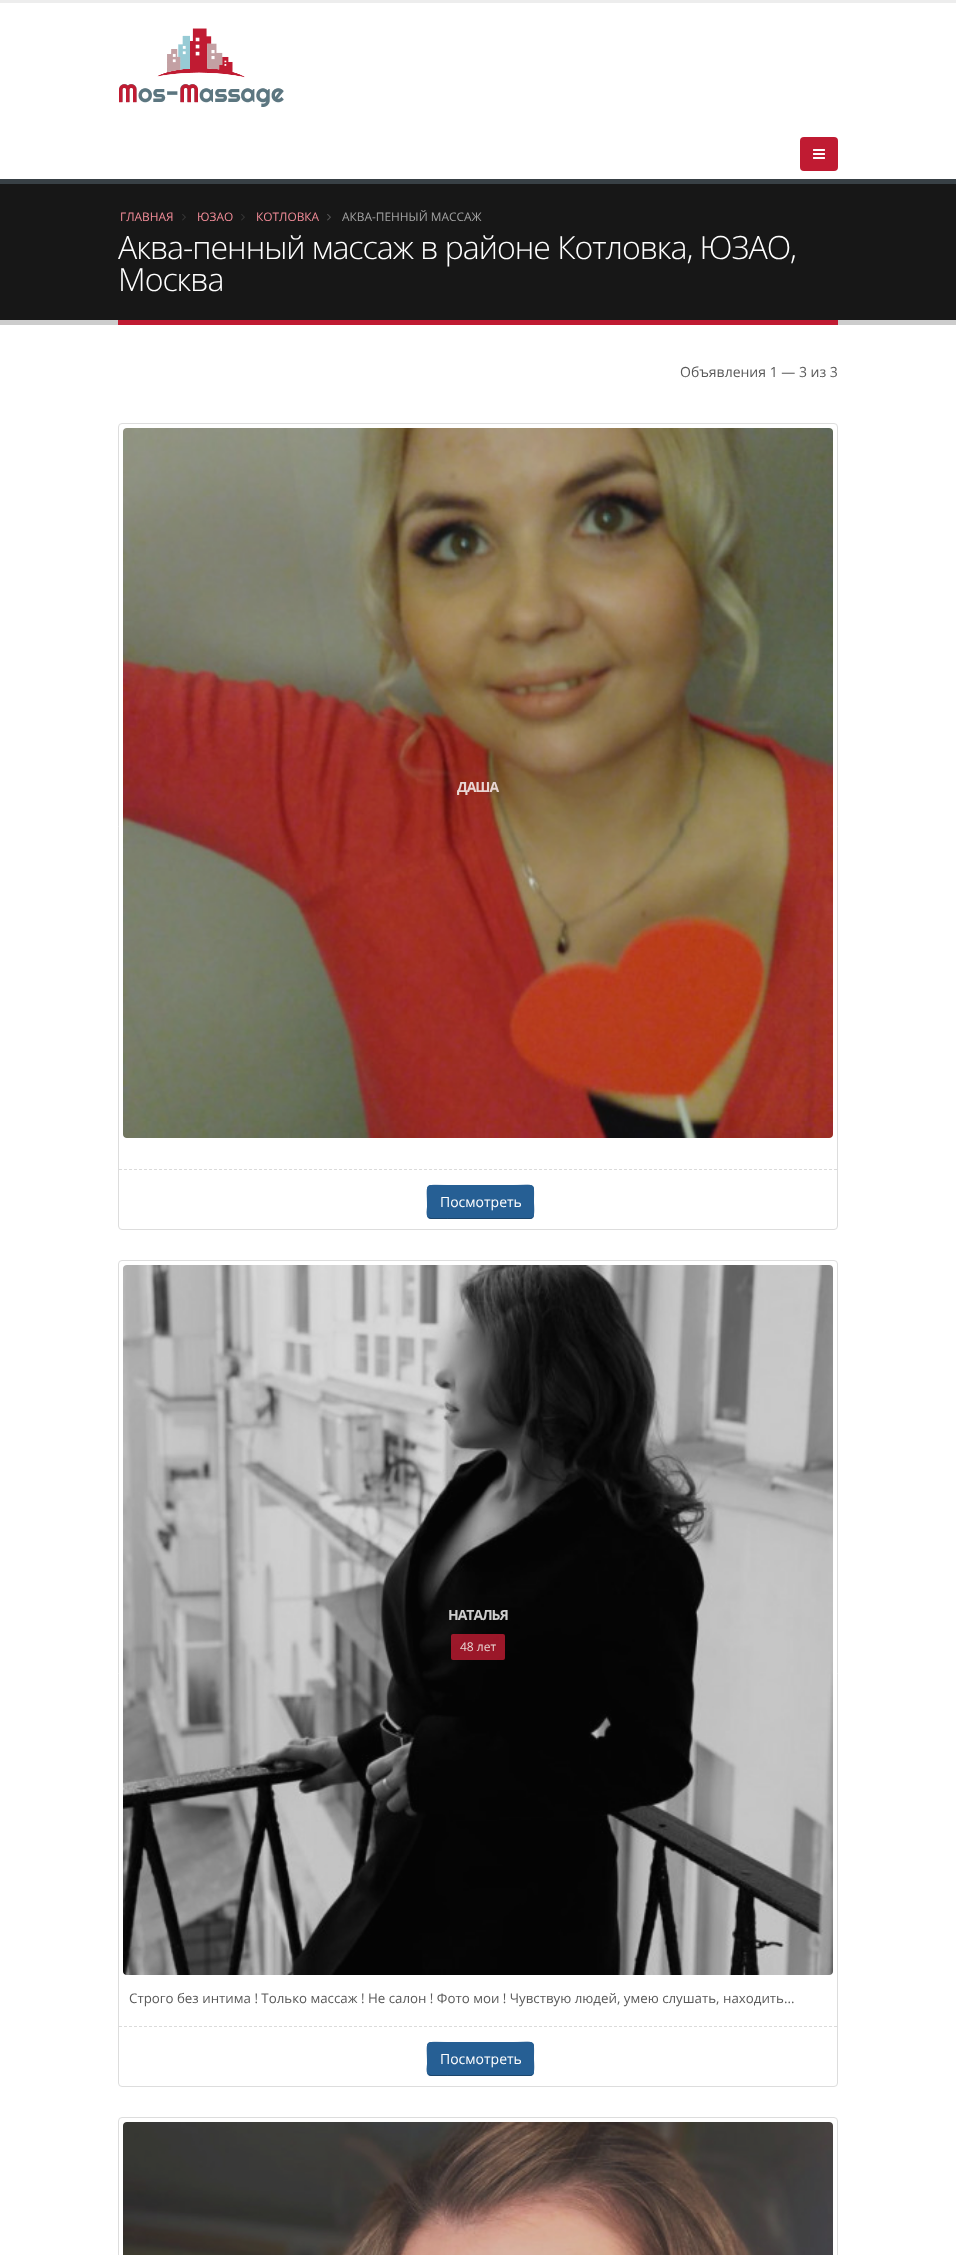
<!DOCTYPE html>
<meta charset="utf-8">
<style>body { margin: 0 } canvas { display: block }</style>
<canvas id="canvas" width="956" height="2255"></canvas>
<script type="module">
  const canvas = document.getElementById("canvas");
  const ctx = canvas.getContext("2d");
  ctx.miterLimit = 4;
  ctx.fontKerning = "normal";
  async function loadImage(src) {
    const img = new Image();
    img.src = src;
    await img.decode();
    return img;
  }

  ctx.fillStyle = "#ffffff";
  ctx.fillRect(0, 0, 956, 2255);
  ctx.fillStyle = "#ededed";
  ctx.fillRect(0, 0, 956, 3);
  ctx.drawImage(await loadImage("img1.png"), 119, 28, 165, 79);
  ctx.fillStyle = "#c01b32";
  ctx.beginPath();
  ctx.roundRect(800, 137, 38, 34, 4);
  ctx.fill();
  ctx.drawImage(await loadImage("img2.png"), 813, 149, 12, 10);
  ctx.fillStyle = "#171717";
  ctx.fillRect(0, 184, 956, 136);
  ctx.fillStyle = "#384045";
  ctx.fillRect(0, 179, 956, 5);
  ctx.fillStyle = "#cccccc";
  ctx.fillRect(0, 320, 956, 5);
  ctx.font = "11.9px Open Sans";
  ctx.fillStyle = "#f28c98";
  ctx.fillText("ГЛАВНАЯ", 120, 221);
  ctx.drawImage(await loadImage("img3.png"), 182, 214, 4, 7);
  ctx.fillText("ЮЗАО", 197, 221);
  ctx.drawImage(await loadImage("img3.png"), 241, 214, 4, 7);
  ctx.fillText("КОТЛОВКА", 256, 221);
  ctx.drawImage(await loadImage("img4.png"), 327, 214, 4, 7);
  ctx.fillStyle = "#a3a3a3";
  ctx.fillText("АКВА-ПЕННЫЙ МАССАЖ", 342, 221);
  ctx.fillStyle = "#c01b32";
  ctx.fillRect(118, 320, 720, 5);
  ctx.letterSpacing = "-1px";
  ctx.font = "300 32px Open Sans";
  ctx.fillStyle = "#ffffff";
  ctx.fillText("Аква-пенный массаж в районе Котловка, ЮЗАО,", 118, 259);
  ctx.fillText("Москва", 118, 291);
  ctx.letterSpacing = "0px";
  ctx.font = "14px Open Sans";
  ctx.fillStyle = "#595959";
  ctx.fillText("Объявления 1 — 3 из 3", 680, 377);
  ctx.beginPath();
  ctx.roundRect(118.5, 423.5, 719, 806, 3.5);
  ctx.strokeStyle = "#dddddd";
  ctx.stroke();
  ctx.drawImage(await loadImage("img5.png"), 123, 428, 710, 710);
  ctx.fillStyle = "rgba(23, 23, 23, 0.16)";
  ctx.beginPath();
  ctx.roundRect(123, 428, 710, 710, 4);
  ctx.fill();
  ctx.letterSpacing = "-1px";
  ctx.font = "bold 14px Open Sans";
  ctx.fillStyle = "#e8d6d3";
  ctx.fillText("ДАША", 457, 792);
  ctx.beginPath();
  ctx.moveTo(119, 1169.5);
  ctx.lineTo(837, 1169.5);
  ctx.strokeStyle = "#dbdbdb";
  ctx.setLineDash([3, 2]);
  ctx.stroke();
  ctx.fillStyle = "#265f94";
  ctx.beginPath();
  ctx.roundRect(427, 1185, 107, 34, 4);
  ctx.fill();
  ctx.beginPath();
  ctx.moveTo(532.5, 1217.5);
  ctx.lineTo(530.5, 1218.5);
  ctx.lineTo(447.5, 1218.5);
  ctx.lineTo(431, 1218.5);
  ctx.lineTo(428.5, 1217.5);
  ctx.strokeStyle = "#1c456b";
  ctx.setLineDash([]);
  ctx.stroke();
  ctx.beginPath();
  ctx.moveTo(428.5, 1217.5);
  ctx.bezierCurveTo(426, 1215, 427.5, 1209, 427.5, 1206.5);
  ctx.bezierCurveTo(427.5, 1182, 423, 1185.5, 447.5, 1185.5);
  ctx.lineTo(513.5, 1185.5);
  ctx.bezierCurveTo(536, 1185.5, 533.5, 1181.5, 533.5, 1202);
  ctx.bezierCurveTo(533.5, 1205, 534.5, 1215, 532.5, 1217.5);
  ctx.strokeStyle = "#265f94";
  ctx.stroke();
  ctx.letterSpacing = "0px";
  ctx.font = "14px Open Sans";
  ctx.fillStyle = "#ffffff";
  ctx.fillText("Посмотреть", 440, 1207);
  ctx.beginPath();
  ctx.roundRect(118.5, 1260.5, 719, 826, 3.5);
  ctx.strokeStyle = "#dddddd";
  ctx.stroke();
  ctx.drawImage(await loadImage("img6.png"), 123, 1265, 710, 710);
  ctx.fillStyle = "rgba(23, 23, 23, 0.16)";
  ctx.beginPath();
  ctx.roundRect(123, 1265, 710, 710, 4);
  ctx.fill();
  ctx.letterSpacing = "-1px";
  ctx.font = "bold 14px Open Sans";
  ctx.fillStyle = "#cecece";
  ctx.fillText("НАТАЛЬЯ", 448, 1620);
  ctx.fillStyle = "rgba(192, 27, 50, 0.8)";
  ctx.beginPath();
  ctx.roundRect(451, 1634, 54, 26, 2);
  ctx.fill();
  ctx.letterSpacing = "0px";
  ctx.font = "12px Open Sans";
  ctx.fillStyle = "#e8d6d3";
  ctx.fillText("48 лет", 460, 1651);
  ctx.font = "13.3px Open Sans";
  ctx.fillStyle = "#595959";
  ctx.fillText("Строго без интима ! Только массаж ! Не салон ! Фото мои ! Чувствую людей, умею слушать, находить...", 129, 2003);
  ctx.beginPath();
  ctx.moveTo(119, 2026.5);
  ctx.lineTo(837, 2026.5);
  ctx.strokeStyle = "#dbdbdb";
  ctx.setLineDash([3, 2]);
  ctx.stroke();
  ctx.fillStyle = "#265f94";
  ctx.beginPath();
  ctx.roundRect(427, 2042, 107, 34, 4);
  ctx.fill();
  ctx.beginPath();
  ctx.moveTo(532.5, 2074.5);
  ctx.lineTo(530.5, 2075.5);
  ctx.lineTo(447.5, 2075.5);
  ctx.lineTo(431, 2075.5);
  ctx.lineTo(428.5, 2074.5);
  ctx.strokeStyle = "#1c456b";
  ctx.setLineDash([]);
  ctx.stroke();
  ctx.beginPath();
  ctx.moveTo(428.5, 2074.5);
  ctx.bezierCurveTo(426, 2072, 427.5, 2066, 427.5, 2063.5);
  ctx.bezierCurveTo(427.5, 2039, 423, 2042.5, 447.5, 2042.5);
  ctx.lineTo(513.5, 2042.5);
  ctx.bezierCurveTo(536, 2042.5, 533.5, 2038.5, 533.5, 2059);
  ctx.bezierCurveTo(533.5, 2062, 534.5, 2072, 532.5, 2074.5);
  ctx.strokeStyle = "#265f94";
  ctx.stroke();
  ctx.font = "14px Open Sans";
  ctx.fillStyle = "#ffffff";
  ctx.fillText("Посмотреть", 440, 2064);
  ctx.beginPath();
  ctx.roundRect(118.5, 2117.5, 719, 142, 3.5);
  ctx.strokeStyle = "#dddddd";
  ctx.stroke();
  ctx.drawImage(await loadImage("img7.png"), 123, 2122, 710, 133);
  ctx.fillStyle = "rgba(23, 23, 23, 0.16)";
  ctx.beginPath();
  ctx.roundRect(123, 2122, 710, 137, 4);
  ctx.fill();
</script>
